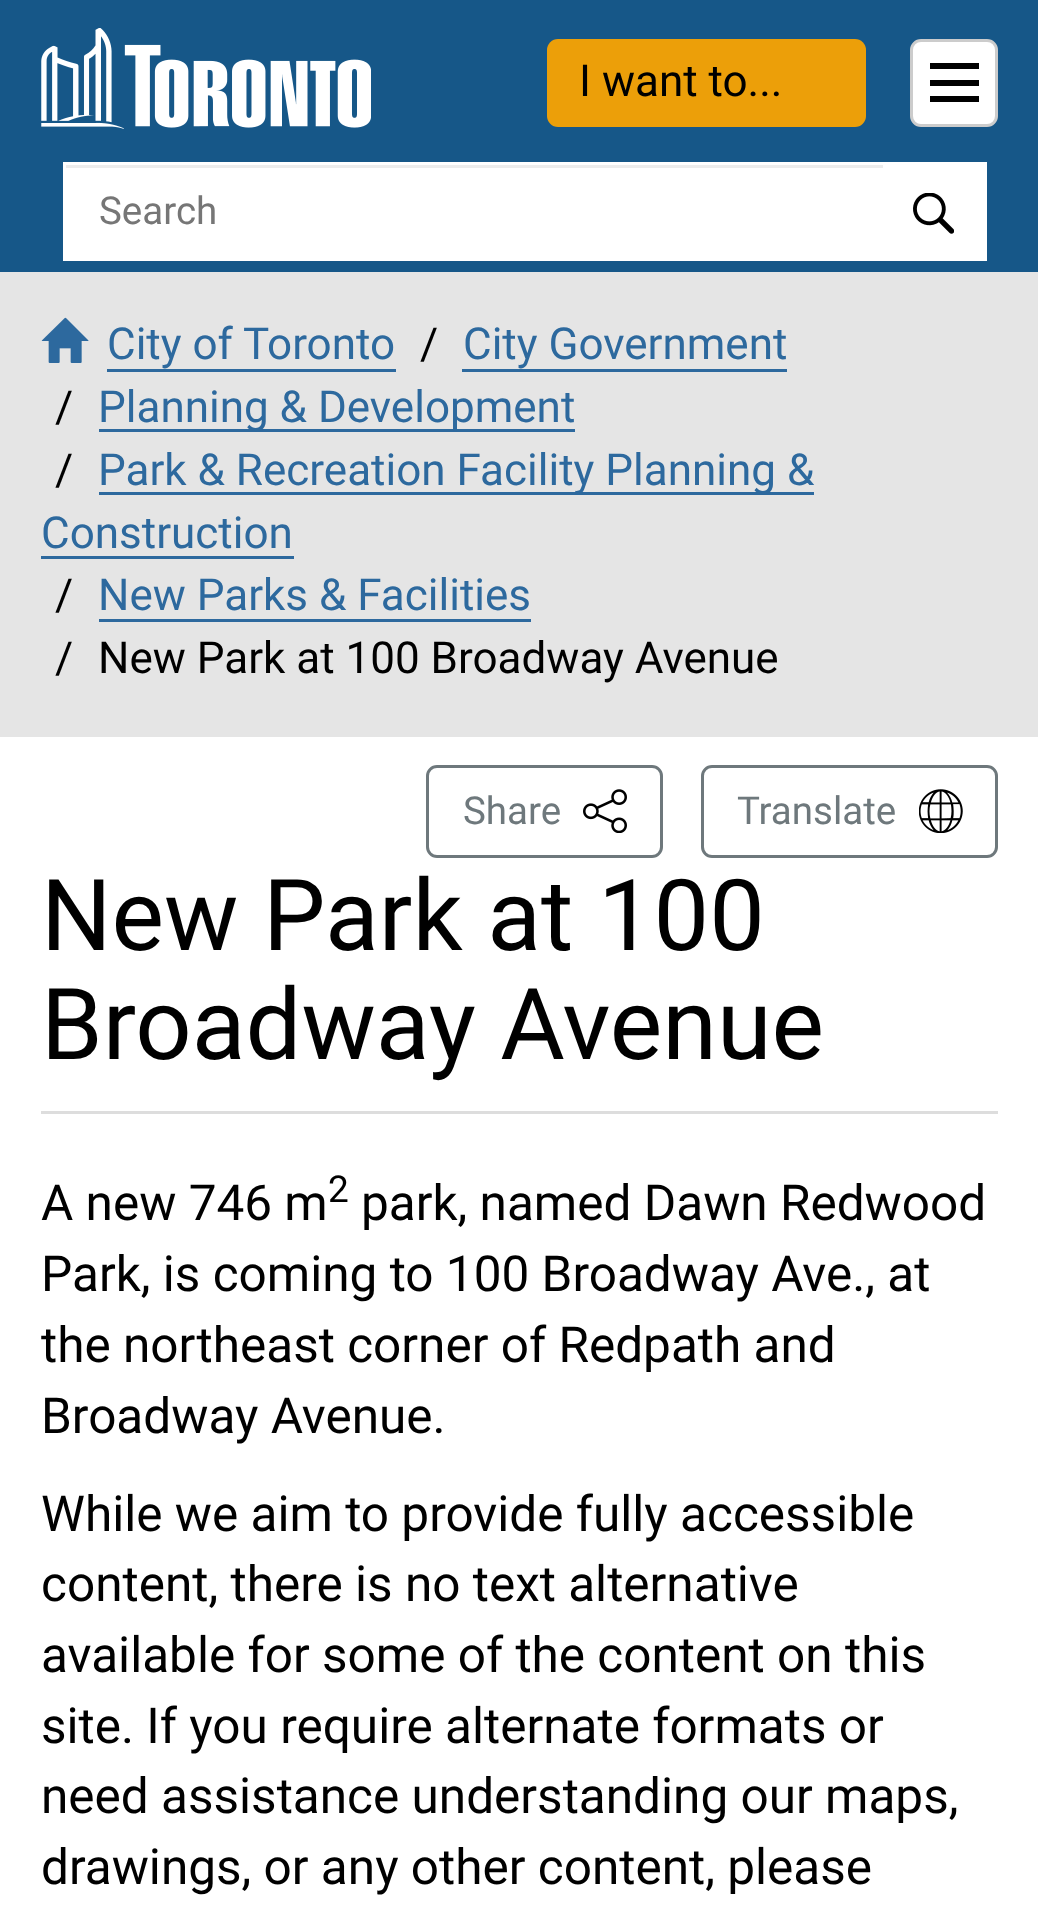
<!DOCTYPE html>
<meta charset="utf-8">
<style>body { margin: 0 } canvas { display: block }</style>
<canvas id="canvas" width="1038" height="1913"></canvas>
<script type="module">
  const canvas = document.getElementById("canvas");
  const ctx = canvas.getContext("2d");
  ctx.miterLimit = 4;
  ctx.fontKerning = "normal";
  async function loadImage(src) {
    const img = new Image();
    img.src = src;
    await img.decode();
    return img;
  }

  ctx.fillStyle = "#ffffff";
  ctx.fillRect(0, 0, 1038, 1913);
  ctx.fillStyle = "#165788";
  ctx.fillRect(0, 0, 1038, 272);
  ctx.drawImage(await loadImage("img1.png"), 41, 28, 330, 101);
  ctx.fillStyle = "#ec9f09";
  ctx.beginPath();
  ctx.roundRect(547, 39, 319, 88, 11);
  ctx.fill();
  ctx.font = "44px Roboto";
  ctx.fillStyle = "#000000";
  ctx.fillText("I want to...", 579, 96);
  ctx.fillStyle = "#ffffff";
  ctx.beginPath();
  ctx.roundRect(911.5, 40.5, 85, 85, 9.5);
  ctx.fill();
  ctx.strokeStyle = "#cccccc";
  ctx.lineWidth = 3;
  ctx.stroke();
  ctx.fillStyle = "#000000";
  ctx.fillRect(930, 80, 49, 6);
  ctx.fillRect(930, 63, 49, 6);
  ctx.fillRect(930, 96, 49, 6);
  ctx.fillStyle = "#ffffff";
  ctx.fillRect(63, 162, 924, 99);
  ctx.drawImage(await loadImage("img2.png"), 913, 193, 41, 41);
  ctx.fillStyle = "#ececec";
  ctx.fillRect(66, 165, 817, 3);
  ctx.font = "38.5px Roboto";
  ctx.fillStyle = "#767676";
  ctx.fillText("Search", 99, 224);
  ctx.fillStyle = "#e5e5e5";
  ctx.fillRect(0, 272, 1038, 465);
  ctx.drawImage(await loadImage("img3.png"), 41, 317, 48, 46);
  ctx.font = "44px Roboto";
  ctx.fillStyle = "#2d699e";
  ctx.fillText("City of Toronto", 107, 359);
  ctx.fillRect(107, 369, 289, 3);
  ctx.fillStyle = "#000000";
  ctx.fillText("/", 420, 359);
  ctx.fillStyle = "#2d699e";
  ctx.fillText("City Government", 463, 359);
  ctx.fillRect(462, 369, 325, 3);
  ctx.fillStyle = "#000000";
  ctx.fillText("/", 55, 422);
  ctx.fillStyle = "#2d699e";
  ctx.fillRect(99, 429, 476, 3);
  ctx.fillText("Planning & Development", 98, 422);
  ctx.fillStyle = "#000000";
  ctx.fillText("/", 55, 485);
  ctx.fillStyle = "#2d699e";
  ctx.fillRect(99, 492, 715, 3);
  ctx.fillText("Park & Recreation Facility Planning &", 98, 485);
  ctx.fillText("Construction", 41, 548);
  ctx.fillRect(41, 556, 253, 3);
  ctx.fillStyle = "#000000";
  ctx.fillText("/", 55, 610);
  ctx.fillStyle = "#2d699e";
  ctx.fillText("New Parks & Facilities", 98, 610);
  ctx.fillRect(99, 619, 432, 3);
  ctx.fillStyle = "#000000";
  ctx.fillText("/", 55, 673);
  ctx.fillText("New Park at 100 Broadway Avenue", 98, 673);
  ctx.fillStyle = "#dddddd";
  ctx.fillRect(41, 1111, 957, 3);
  ctx.drawImage(await loadImage("img4.png"), 583, 789, 44, 44);
  ctx.beginPath();
  ctx.roundRect(427.5, 766.5, 234, 90, 9.5);
  ctx.strokeStyle = "#6e787c";
  ctx.stroke();
  ctx.font = "38.5px Roboto";
  ctx.fillStyle = "#6e787c";
  ctx.fillText("Share", 463, 824);
  ctx.drawImage(await loadImage("img5.png"), 919, 789, 44, 44);
  ctx.beginPath();
  ctx.roundRect(702.5, 766.5, 294, 90, 9.5);
  ctx.stroke();
  ctx.fillText("Translate", 737, 824);
  ctx.font = "99px Roboto";
  ctx.fillStyle = "#000000";
  ctx.fillText("New Park at 100", 41, 950);
  ctx.fillText("Broadway Avenue", 41, 1059);
  ctx.font = "49.5px Roboto";
  ctx.fillText("A new 746 m", 41, 1220);
  ctx.font = "37px Roboto";
  ctx.fillText("2", 328, 1202);
  ctx.font = "49.5px Roboto";
  ctx.fillText("park, named Dawn Redwood", 361, 1220);
  ctx.fillText("Park, is coming to 100 Broadway Ave., at", 41, 1291);
  ctx.fillText("the northeast corner of Redpath and", 41, 1362);
  ctx.fillText("Broadway Avenue.", 41, 1433);
  ctx.fillText("While we aim to provide fully accessible", 41, 1531);
  ctx.fillText("content, there is no text alternative", 41, 1601);
  ctx.fillText("available for some of the content on this", 41, 1672);
  ctx.fillText("site. If you require alternate formats or", 41, 1743);
  ctx.fillText("need assistance understanding our maps,", 41, 1813);
  ctx.fillText("drawings, or any other content, please", 41, 1884);
</script>
